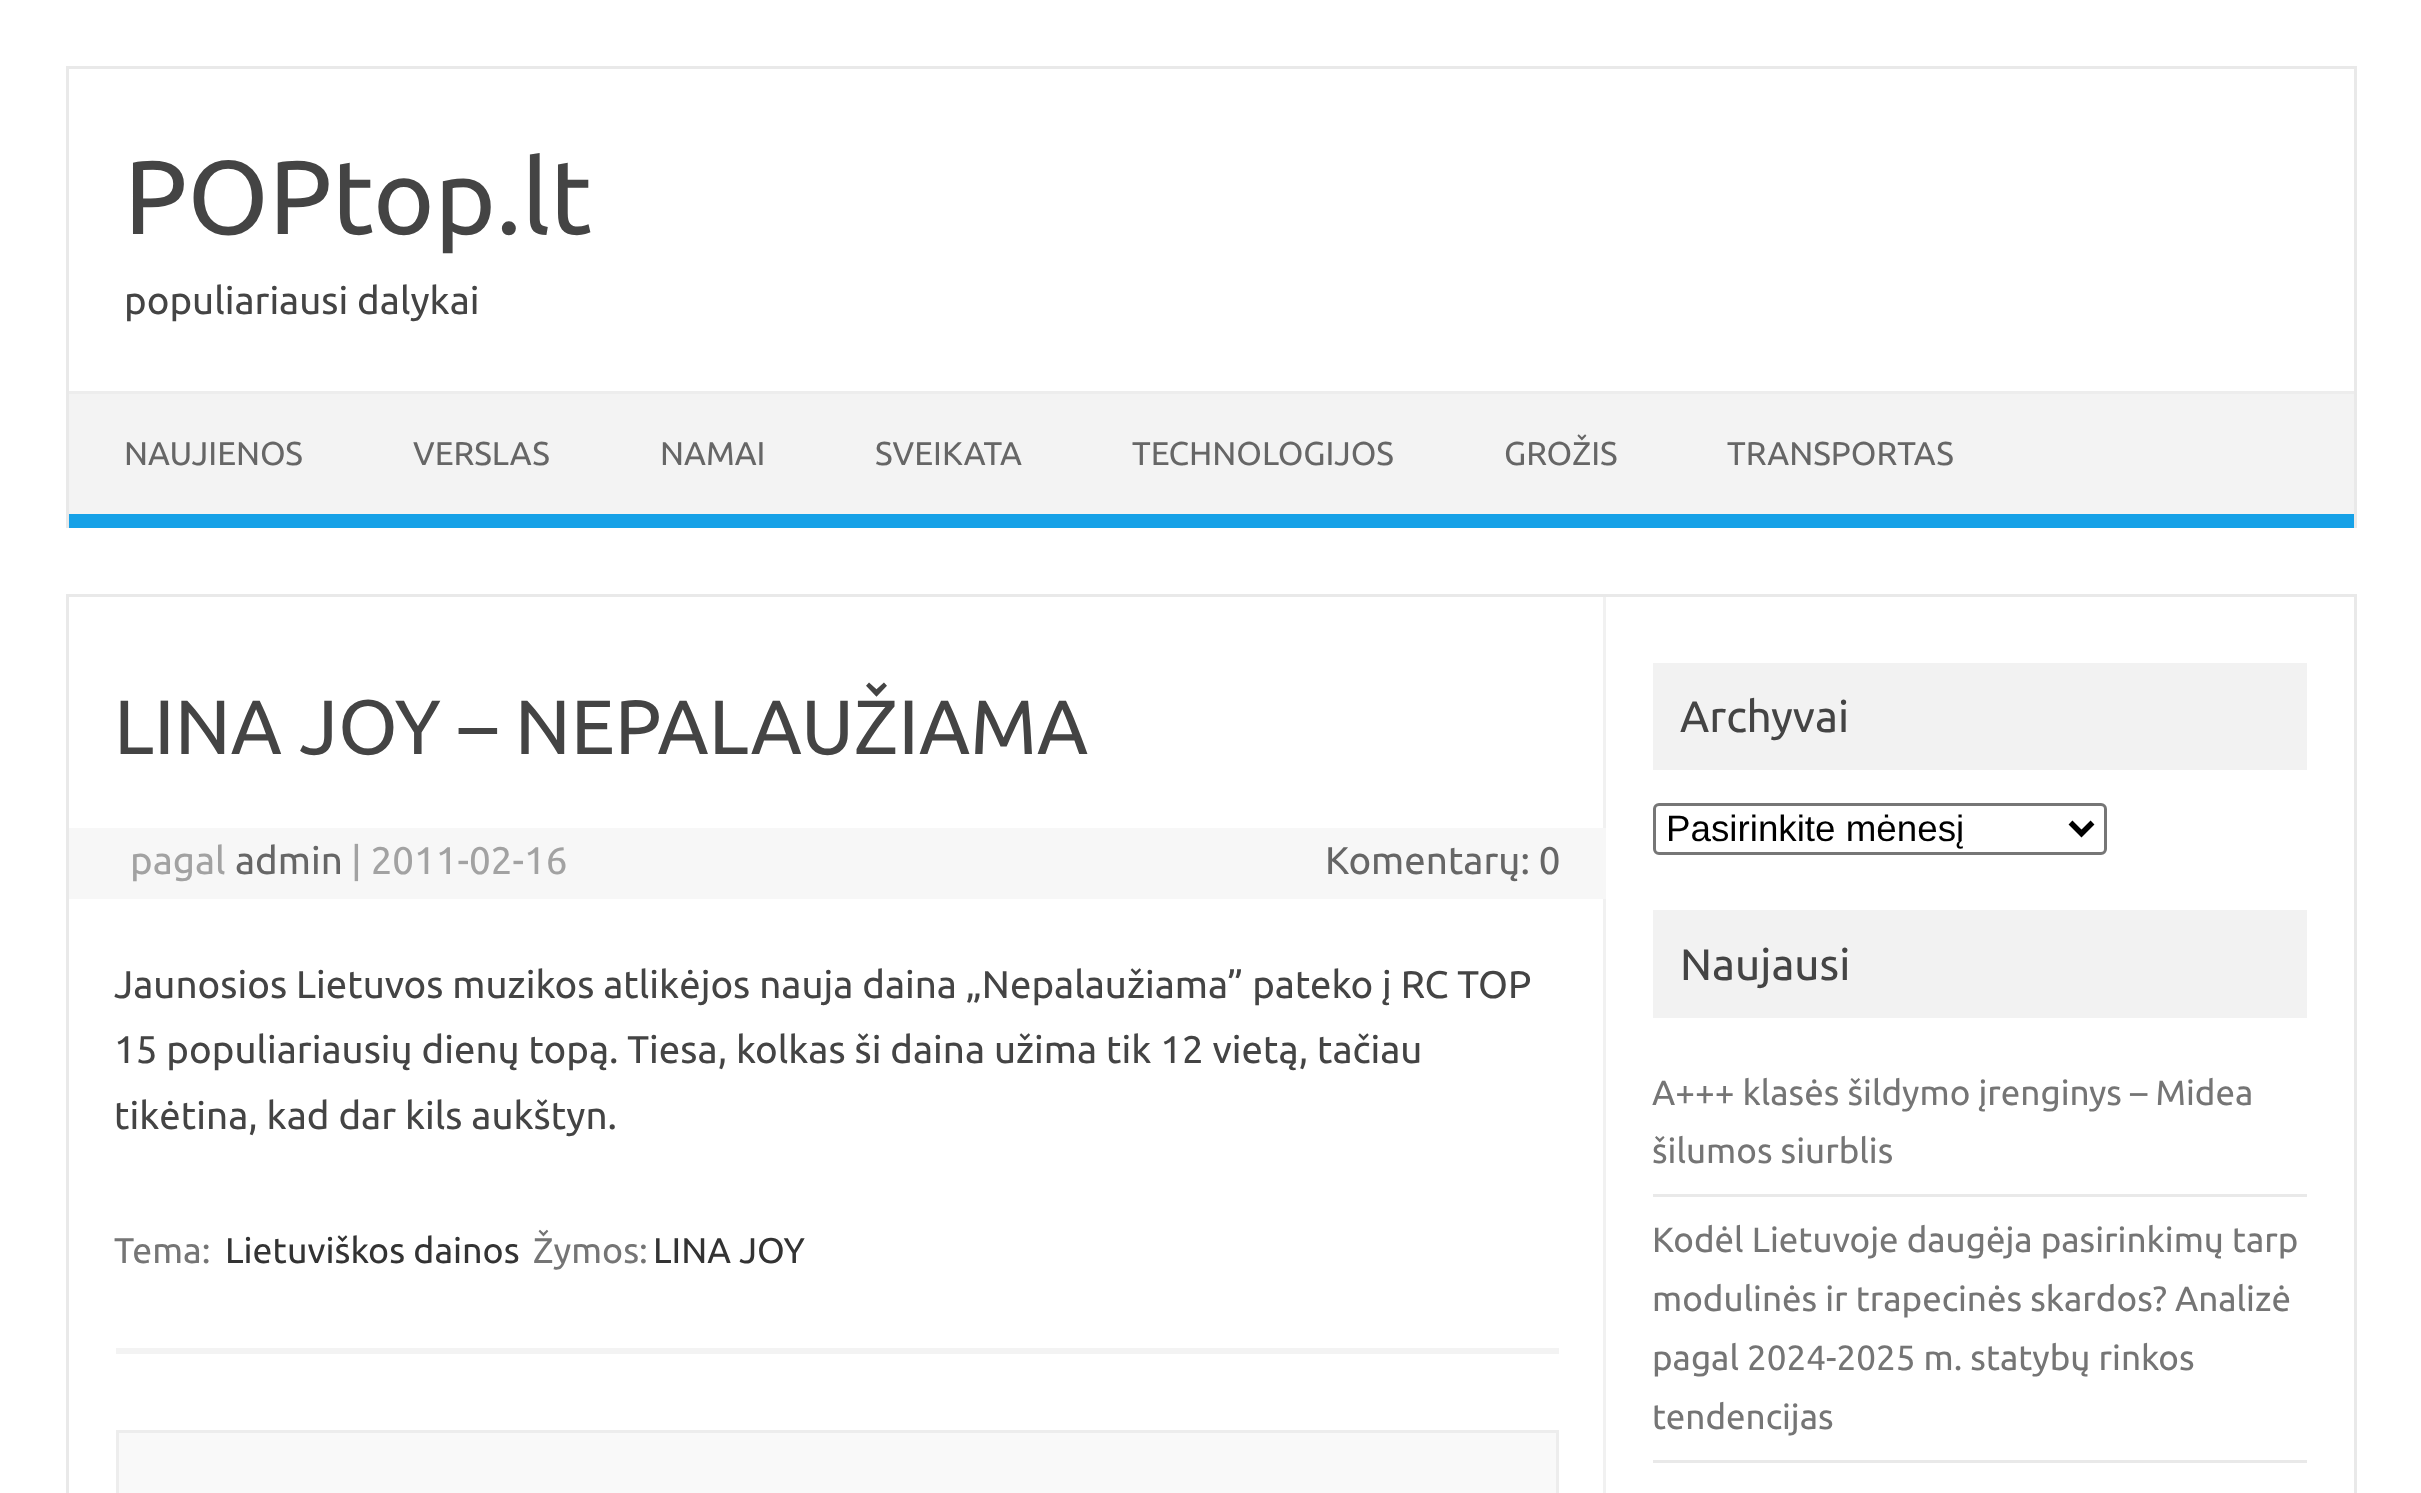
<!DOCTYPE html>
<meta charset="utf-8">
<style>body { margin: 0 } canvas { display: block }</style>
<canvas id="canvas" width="2421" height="1493"></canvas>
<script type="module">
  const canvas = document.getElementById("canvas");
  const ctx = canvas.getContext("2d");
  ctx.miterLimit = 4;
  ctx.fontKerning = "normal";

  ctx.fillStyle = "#ffffff";
  ctx.fillRect(0, 0, 2421, 1493);
  ctx.fillStyle = "#e9e9e9";
  ctx.fillRect(66, 66, 2291, 3);
  ctx.fillRect(2354, 66, 3, 462);
  ctx.fillRect(66, 66, 3, 462);
  ctx.font = "104.5px Ubuntu";
  ctx.fillStyle = "#444444";
  ctx.fillText("POPtop.lt", 124, 234);
  ctx.font = "38.5px Ubuntu";
  ctx.fillText("populiariausi dalykai", 124, 314);
  ctx.fillStyle = "#f3f3f3";
  ctx.fillRect(69, 394, 2285, 120);
  ctx.fillStyle = "#ededed";
  ctx.fillRect(69, 391, 2285, 3);
  ctx.fillStyle = "#16a1e7";
  ctx.fillRect(69, 514, 2285, 14);
  ctx.font = "33px Ubuntu";
  ctx.fillStyle = "#666666";
  ctx.fillText("NAUJIENOS", 124, 465);
  ctx.fillText("VERSLAS", 413, 465);
  ctx.fillText("NAMAI", 660, 465);
  ctx.fillText("SVEIKATA", 875, 465);
  ctx.fillText("TECHNOLOGIJOS", 1132, 465);
  ctx.fillText("GROŽIS", 1504, 465);
  ctx.fillText("TRANSPORTAS", 1727, 465);
  ctx.strokeStyle = "#e9e9e9";
  ctx.lineWidth = 3;
  ctx.strokeRect(67.5, 595.5, 2288, 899);
  ctx.fillStyle = "#f1f1f1";
  ctx.fillRect(1603, 597, 3, 896);
  ctx.fillStyle = "#f3f3f3";
  ctx.fillRect(116, 1348, 1443, 6);
  ctx.font = "77px Ubuntu";
  ctx.fillStyle = "#444444";
  ctx.fillText("LINA JOY – NEPALAUŽIAMA", 114, 754);
  ctx.fillStyle = "#f7f7f7";
  ctx.fillRect(69, 828, 1537, 71);
  ctx.font = "38.5px Ubuntu";
  ctx.fillStyle = "#a2a2a2";
  ctx.fillText("pagal", 130, 874);
  ctx.fillStyle = "#666666";
  ctx.fillText("admin", 235, 874);
  ctx.fillStyle = "#a2a2a2";
  ctx.fillText("| 2011-02-16", 351, 874);
  ctx.fillStyle = "#666666";
  ctx.fillText("Komentarų: 0", 1325, 874);
  ctx.fillStyle = "#444444";
  ctx.fillText("Jaunosios Lietuvos muzikos atlikėjos nauja daina „Nepalaužiama” pateko į RC TOP", 114, 998);
  ctx.fillText("15 populiariausių dienų topą. Tiesa, kolkas ši daina užima tik 12 vietą, tačiau", 114, 1063);
  ctx.fillText("tikėtina, kad dar kils aukštyn.", 114, 1129);
  ctx.font = "35.75px Ubuntu";
  ctx.fillStyle = "#757575";
  ctx.fillText("Tema:", 114, 1263);
  ctx.fillStyle = "#333333";
  ctx.fillText("Lietuviškos dainos", 225, 1263);
  ctx.fillStyle = "#757575";
  ctx.fillText("Žymos:", 533, 1263);
  ctx.fillStyle = "#333333";
  ctx.fillText("LINA JOY", 653, 1263);
  ctx.fillStyle = "#f9f9f9";
  ctx.beginPath();
  ctx.rect(117.5, 1431.5, 1440, 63);
  ctx.fill();
  ctx.strokeStyle = "#ededed";
  ctx.stroke();
  ctx.fillStyle = "#f2f2f2";
  ctx.fillRect(1653, 663, 654, 107);
  ctx.font = "44px Ubuntu";
  ctx.fillStyle = "#444444";
  ctx.fillText("Archyvai", 1680, 732);
  ctx.beginPath();
  ctx.roundRect(1654.5, 804.5, 451, 49, 4.5);
  ctx.strokeStyle = "#767676";
  ctx.stroke();
  ctx.beginPath();
  ctx.moveTo(2070.5, 822.5);
  ctx.lineTo(2081.5, 833.5);
  ctx.lineTo(2092.5, 822.5);
  ctx.strokeStyle = "#000000";
  ctx.lineWidth = 5.5;
  ctx.stroke();
  ctx.font = "36.75px Liberation Sans";
  ctx.fillStyle = "#000000";
  ctx.fillText("Pasirinkite mėnesį", 1666, 841);
  ctx.fillStyle = "#f2f2f2";
  ctx.fillRect(1653, 910, 654, 108);
  ctx.font = "44px Ubuntu";
  ctx.fillStyle = "#444444";
  ctx.fillText("Naujausi", 1680, 980);
  ctx.fillStyle = "#e9e9e9";
  ctx.fillRect(1653, 1194, 654, 3);
  ctx.font = "35px Ubuntu";
  ctx.fillStyle = "#757575";
  ctx.fillText("A+++ klasės šildymo įrenginys – Midea", 1652, 1105);
  ctx.fillText("šilumos siurblis", 1652, 1163);
  ctx.fillStyle = "#e9e9e9";
  ctx.fillRect(1653, 1460, 654, 3);
  ctx.fillStyle = "#757575";
  ctx.fillText("Kodėl Lietuvoje daugėja pasirinkimų tarp", 1652, 1252);
  ctx.fillText("modulinės ir trapecinės skardos? Analizė", 1652, 1311);
  ctx.fillText("pagal 2024-2025 m. statybų rinkos", 1652, 1370);
  ctx.fillText("tendencijas", 1652, 1429);
</script>
